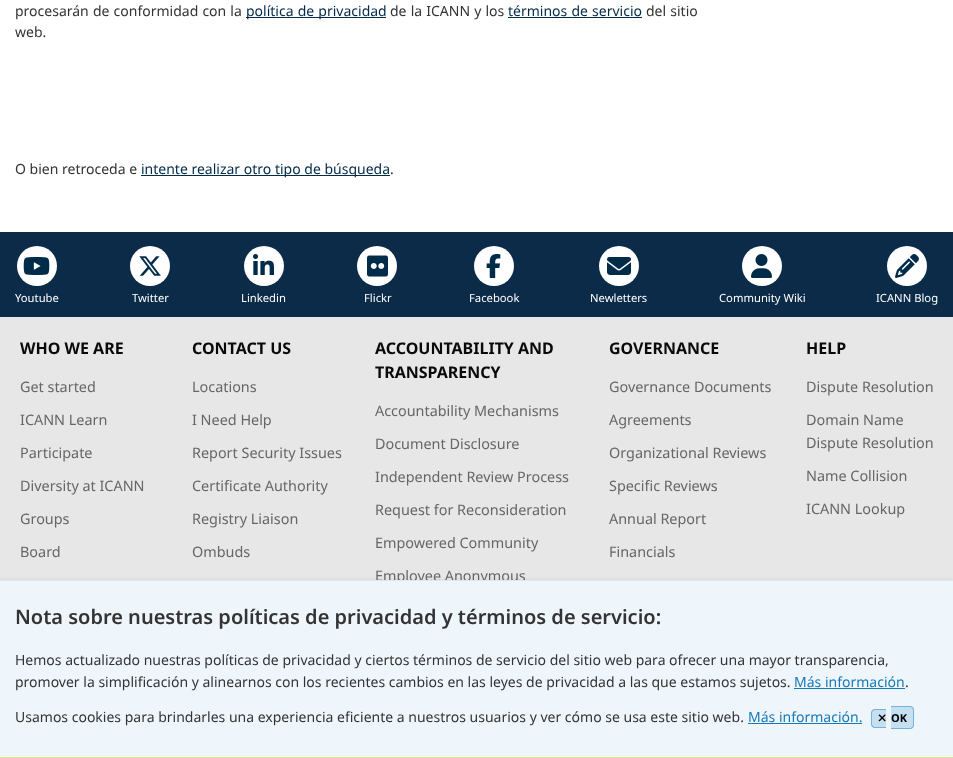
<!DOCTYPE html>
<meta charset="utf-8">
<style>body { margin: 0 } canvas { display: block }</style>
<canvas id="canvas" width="953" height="758"></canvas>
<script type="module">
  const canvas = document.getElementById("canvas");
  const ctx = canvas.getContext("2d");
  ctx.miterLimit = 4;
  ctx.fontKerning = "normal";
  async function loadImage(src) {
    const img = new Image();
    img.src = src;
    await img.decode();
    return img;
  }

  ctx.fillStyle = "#ffffff";
  ctx.fillRect(0, 0, 953, 758);
  ctx.wordSpacing = "0.5px";
  ctx.font = "14px Noto Sans";
  ctx.fillStyle = "#333333";
  ctx.fillText("procesarán de conformidad con la", 15, 16);
  ctx.fillStyle = "#002b49";
  ctx.fillRect(246, 17, 140, 1);
  ctx.fillText("política de privacidad", 246, 16);
  ctx.fillStyle = "#333333";
  ctx.fillText("de la ICANN y los", 390, 16);
  ctx.fillStyle = "#002b49";
  ctx.fillText("términos de servicio", 508, 16);
  ctx.fillRect(508, 17, 134, 1);
  ctx.fillStyle = "#333333";
  ctx.fillText("del sitio", 646, 16);
  ctx.wordSpacing = "0px";
  ctx.fillText("web.", 15, 37);
  ctx.fillText("O bien retroceda e", 15, 174);
  ctx.fillStyle = "#002b49";
  ctx.fillRect(141, 175, 249, 1);
  ctx.fillText("intente realizar otro tipo de búsqueda", 141, 174);
  ctx.fillStyle = "#333333";
  ctx.fillText(".", 390, 174);
  ctx.fillStyle = "#0c2b49";
  ctx.fillRect(0, 232, 953, 85);
  ctx.fillStyle = "#ffffff";
  ctx.beginPath();
  ctx.arc(37, 266, 20, 0, Math.PI * 2);
  ctx.fill();
  ctx.drawImage(await loadImage("img1.png"), 23, 257, 27, 18);
  ctx.font = "11.25px Noto Sans";
  ctx.fillText("Youtube", 15, 302);
  ctx.beginPath();
  ctx.arc(150, 266, 20, 0, Math.PI * 2);
  ctx.fill();
  ctx.drawImage(await loadImage("img2.png"), 139, 256, 22, 20);
  ctx.fillText("Twitter", 132, 302);
  ctx.beginPath();
  ctx.arc(264, 266, 20, 0, Math.PI * 2);
  ctx.fill();
  ctx.drawImage(await loadImage("img3.png"), 253, 254, 21, 21);
  ctx.fillText("Linkedin", 241, 302);
  ctx.beginPath();
  ctx.arc(377, 266, 20, 0, Math.PI * 2);
  ctx.fill();
  ctx.drawImage(await loadImage("img4.png"), 367, 255, 21, 22);
  ctx.fillText("Flickr", 364, 302);
  ctx.beginPath();
  ctx.arc(494, 266, 20, 0, Math.PI * 2);
  ctx.fill();
  ctx.drawImage(await loadImage("img5.png"), 486, 254, 15, 24);
  ctx.fillText("Facebook", 469, 302);
  ctx.beginPath();
  ctx.arc(619, 266, 20, 0, Math.PI * 2);
  ctx.fill();
  ctx.drawImage(await loadImage("img6.png"), 607, 257, 24, 18);
  ctx.fillText("Newletters", 590, 302);
  ctx.beginPath();
  ctx.arc(762, 266, 20, 0, Math.PI * 2);
  ctx.fill();
  ctx.drawImage(await loadImage("img7.png"), 751, 254, 21, 24);
  ctx.fillText("Community Wiki", 719, 302);
  ctx.beginPath();
  ctx.arc(907, 266, 20, 0, Math.PI * 2);
  ctx.fill();
  ctx.drawImage(await loadImage("img8.png"), 895, 254, 24, 24);
  ctx.fillText("ICANN Blog", 876, 302);
  ctx.fillStyle = "#e7e7e7";
  ctx.fillRect(0, 317, 953, 263);
  ctx.font = "bold 16px Noto Sans";
  ctx.fillStyle = "#0a0a0a";
  ctx.fillText("WHO WE ARE", 20, 354);
  ctx.font = "14.4px Noto Sans";
  ctx.fillStyle = "#666666";
  ctx.fillText("Get started", 20, 392);
  ctx.fillText("ICANN Learn", 20, 425);
  ctx.fillText("Participate", 20, 458);
  ctx.fillText("Diversity at ICANN", 20, 491);
  ctx.fillText("Groups", 20, 524);
  ctx.fillText("Board", 20, 557);
  ctx.font = "bold 16px Noto Sans";
  ctx.fillStyle = "#0a0a0a";
  ctx.fillText("CONTACT US", 192, 354);
  ctx.font = "14.4px Noto Sans";
  ctx.fillStyle = "#666666";
  ctx.fillText("Locations", 192, 392);
  ctx.fillText("I Need Help", 192, 425);
  ctx.fillText("Report Security Issues", 192, 458);
  ctx.fillText("Certificate Authority", 192, 491);
  ctx.fillText("Registry Liaison", 192, 524);
  ctx.fillText("Ombuds", 192, 557);
  ctx.font = "bold 16px Noto Sans";
  ctx.fillStyle = "#0a0a0a";
  ctx.fillText("ACCOUNTABILITY AND", 375, 354);
  ctx.fillText("TRANSPARENCY", 375, 378);
  ctx.font = "14.4px Noto Sans";
  ctx.fillStyle = "#666666";
  ctx.fillText("Accountability Mechanisms", 375, 416);
  ctx.fillText("Document Disclosure", 375, 449);
  ctx.fillText("Independent Review Process", 375, 482);
  ctx.fillText("Request for Reconsideration", 375, 515);
  ctx.fillText("Empowered Community", 375, 548);
  ctx.fillText("Employee Anonymous", 375, 581);
  ctx.font = "bold 16px Noto Sans";
  ctx.fillStyle = "#0a0a0a";
  ctx.fillText("GOVERNANCE", 609, 354);
  ctx.font = "14.4px Noto Sans";
  ctx.fillStyle = "#666666";
  ctx.fillText("Governance Documents", 609, 392);
  ctx.fillText("Agreements", 609, 425);
  ctx.fillText("Organizational Reviews", 609, 458);
  ctx.fillText("Specific Reviews", 609, 491);
  ctx.fillText("Annual Report", 609, 524);
  ctx.fillText("Financials", 609, 557);
  ctx.font = "bold 16px Noto Sans";
  ctx.fillStyle = "#0a0a0a";
  ctx.fillText("HELP", 806, 354);
  ctx.font = "14.4px Noto Sans";
  ctx.fillStyle = "#666666";
  ctx.fillText("Dispute Resolution", 806, 392);
  ctx.fillText("Domain Name", 806, 425);
  ctx.fillText("Dispute Resolution", 806, 448);
  ctx.fillText("Name Collision", 806, 481);
  ctx.fillText("ICANN Lookup", 806, 514);
  ctx.fillStyle = "rgba(0, 0, 0, 0.05)";
  ctx.filter = "blur(1.5px)";
  ctx.beginPath();
  ctx.rect(0, 579, 953, 178);
  ctx.fill();
  ctx.filter = "none";
  ctx.fillStyle = "#eff6fb";
  ctx.fillRect(0, 581, 953, 176);
  ctx.fillStyle = "#e6e6e6";
  ctx.fillRect(0, 580, 953, 1);
  ctx.font = "600 20px Noto Sans";
  ctx.fillStyle = "#333333";
  ctx.fillText("Nota sobre nuestras políticas de privacidad y términos de servicio:", 15, 624);
  ctx.font = "14px Noto Sans";
  ctx.fillText("Hemos actualizado nuestras políticas de privacidad y ciertos términos de servicio del sitio web para ofrecer una mayor transparencia,", 15, 665);
  ctx.fillText("promover la simplificación y alinearnos con los recientes cambios en las leyes de privacidad a las que estamos sujetos.", 15, 687);
  ctx.fillStyle = "#1779ba";
  ctx.fillText("Más información", 794, 687);
  ctx.fillRect(794, 688, 111, 1);
  ctx.fillStyle = "#333333";
  ctx.fillText(".", 905, 687);
  ctx.fillText("Usamos cookies para brindarles una experiencia eficiente a nuestros usuarios y ver cómo se usa este sitio web.", 15, 722);
  ctx.fillStyle = "#1779ba";
  ctx.fillText("Más información.", 748, 722);
  ctx.fillRect(748, 723, 114, 1);
  ctx.fillStyle = "#c6dff1";
  ctx.beginPath();
  ctx.roundRect(871, 709, 15, 19, [4, 0, 0, 4]);
  ctx.fill();
  ctx.fillStyle = "#75b1dc";
  ctx.beginPath();
  ctx.moveTo(875, 709);
  ctx.lineTo(886, 709);
  ctx.lineTo(886, 728);
  ctx.lineTo(875, 728);
  ctx.bezierCurveTo(873, 728, 871, 726, 871, 724);
  ctx.lineTo(871, 713);
  ctx.bezierCurveTo(871, 711, 873, 709, 875, 709);
  ctx.closePath();
  ctx.moveTo(875, 710);
  ctx.lineTo(886, 710);
  ctx.lineTo(886, 727);
  ctx.lineTo(875, 727);
  ctx.bezierCurveTo(873.5, 727, 872, 725.5, 872, 724);
  ctx.lineTo(872, 713);
  ctx.bezierCurveTo(872, 711.5, 873.5, 710, 875, 710);
  ctx.closePath();
  ctx.fill("evenodd");
  ctx.fillStyle = "#c6dff1";
  ctx.beginPath();
  ctx.roundRect(891, 706, 23, 23, [0, 4, 4, 0]);
  ctx.fill();
  ctx.fillStyle = "#75b1dc";
  ctx.beginPath();
  ctx.moveTo(891, 706);
  ctx.lineTo(910, 706);
  ctx.bezierCurveTo(912, 706, 914, 708, 914, 710);
  ctx.lineTo(914, 725);
  ctx.bezierCurveTo(914, 727, 912, 729, 910, 729);
  ctx.lineTo(891, 729);
  ctx.closePath();
  ctx.moveTo(891, 707);
  ctx.lineTo(910, 707);
  ctx.bezierCurveTo(911.5, 707, 913, 708.5, 913, 710);
  ctx.lineTo(913, 725);
  ctx.bezierCurveTo(913, 726.5, 911.5, 728, 910, 728);
  ctx.lineTo(891, 728);
  ctx.closePath();
  ctx.fill("evenodd");
  ctx.drawImage(await loadImage("img9.png"), 878, 714, 8, 8);
  ctx.font = "bold 11px Noto Sans";
  ctx.fillStyle = "#000000";
  ctx.fillText("OK", 891, 722);
  ctx.fillStyle = "#e3e38d";
  ctx.fillRect(0, 757, 953, 1);
</script>
